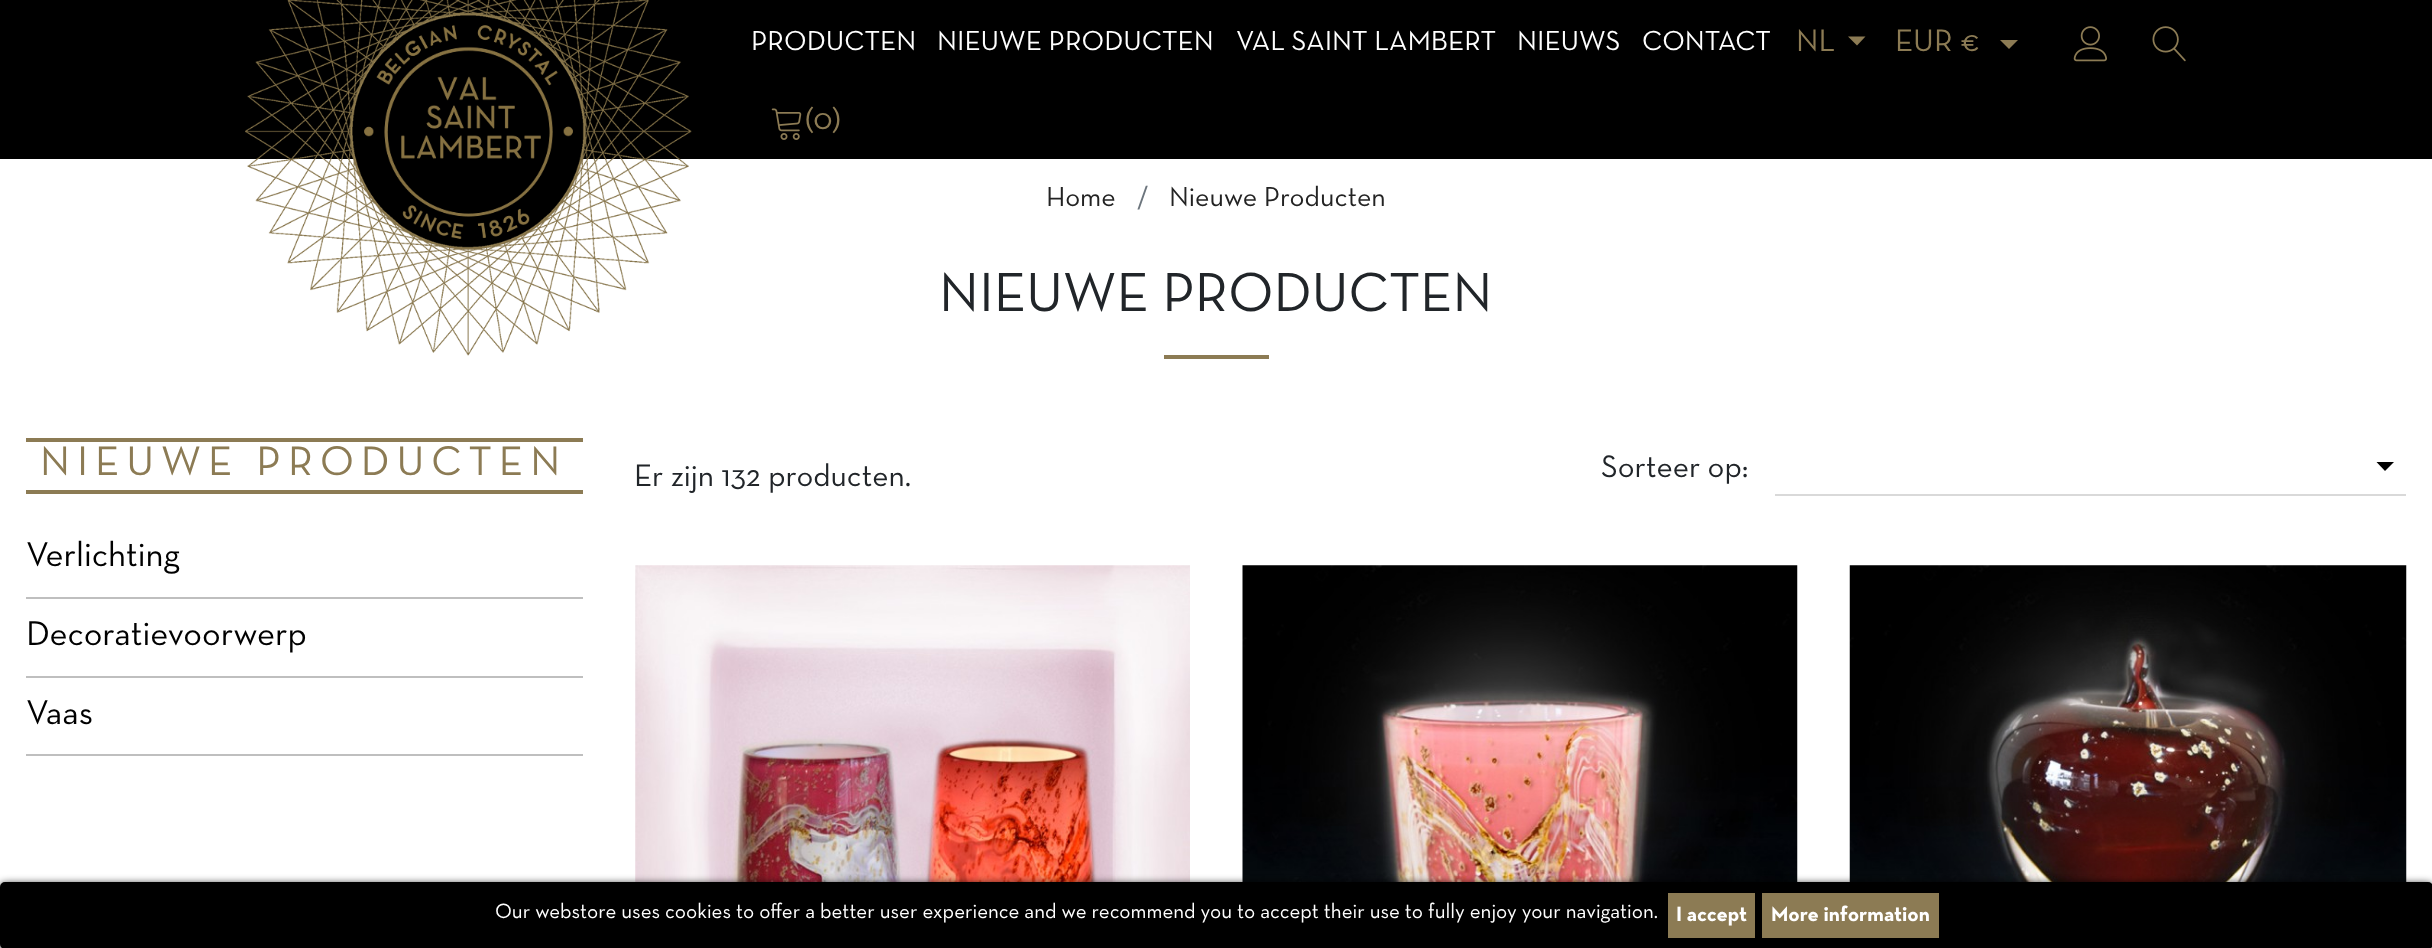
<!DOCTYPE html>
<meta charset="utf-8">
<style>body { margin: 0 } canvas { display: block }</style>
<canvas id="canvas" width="2432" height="948"></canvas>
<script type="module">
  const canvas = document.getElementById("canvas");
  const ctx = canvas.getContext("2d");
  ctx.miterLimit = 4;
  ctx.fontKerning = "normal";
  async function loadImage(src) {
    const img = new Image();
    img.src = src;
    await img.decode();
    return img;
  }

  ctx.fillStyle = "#ffffff";
  ctx.fillRect(0, 0, 2432, 948);
  ctx.fillStyle = "#000000";
  ctx.fillRect(0, 0, 2432, 159);
  ctx.drawImage(await loadImage("img1.png"), 245, 0, 447, 356);
  ctx.font = "28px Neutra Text";
  ctx.fillStyle = "#ffffff";
  ctx.fillText("PRODUCTEN", 751, 50);
  ctx.fillText("NIEUWE PRODUCTEN", 937, 50);
  ctx.fillText("VAL SAINT LAMBERT", 1236, 50);
  ctx.fillText("NIEUWS", 1517, 50);
  ctx.fillText("CONTACT", 1642, 50);
  ctx.font = "31.5px Neutra Text";
  ctx.fillStyle = "#8c7b54";
  ctx.fillText("NL", 1796, 51);
  ctx.beginPath();
  ctx.moveTo(1848, 36.5);
  ctx.lineTo(1865.5, 36.5);
  ctx.lineTo(1857, 45.5);
  ctx.closePath();
  ctx.fill();
  ctx.fillText("EUR €", 1895, 51);
  ctx.beginPath();
  ctx.moveTo(2000, 40);
  ctx.lineTo(2018, 40);
  ctx.lineTo(2009, 49);
  ctx.closePath();
  ctx.fill();
  ctx.drawImage(await loadImage("img2.png"), 2073, 26, 34, 36);
  ctx.drawImage(await loadImage("img3.png"), 2152, 26, 34, 36);
  ctx.drawImage(await loadImage("img4.png"), 771, 108, 31, 32);
  ctx.fillText("(0)", 805, 129);
  ctx.drawImage(await loadImage("img5.png"), 635, 565, 555, 317);
  ctx.drawImage(await loadImage("img6.png"), 1242, 565, 556, 317);
  ctx.drawImage(await loadImage("img7.png"), 1849, 565, 558, 317);
  ctx.fillStyle = "#000000";
  ctx.filter = "blur(4.5px)";
  ctx.beginPath();
  ctx.roundRect(0, 884, 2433, 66, 5);
  ctx.fill();
  ctx.filter = "none";
  ctx.beginPath();
  ctx.roundRect(1, 883, 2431, 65, 4);
  ctx.fill();
  ctx.strokeStyle = "#000000";
  ctx.lineWidth = 2;
  ctx.stroke();
  ctx.font = "21px Neutra Text";
  ctx.fillStyle = "#ffffff";
  ctx.fillText("Our webstore uses cookies to offer a better user experience and we recommend you to accept their use to fully enjoy your navigation.", 495, 918);
  ctx.fillStyle = "#8c7b54";
  ctx.fillRect(1668, 893, 87, 45);
  ctx.font = "bold 21px Neutra Text";
  ctx.fillStyle = "#ffffff";
  ctx.fillText("I accept", 1676, 921);
  ctx.fillStyle = "#8c7b54";
  ctx.fillRect(1762, 893, 177, 45);
  ctx.fillStyle = "#ffffff";
  ctx.fillText("More information", 1771, 921);
  ctx.font = "28px Neutra Text";
  ctx.fillStyle = "#232323";
  ctx.fillText("Home", 1046, 206);
  ctx.fillStyle = "#6c757d";
  ctx.fillText("/", 1137, 206);
  ctx.fillStyle = "#232323";
  ctx.fillText("Nieuwe Producten", 1169, 206);
  ctx.font = "56px Neutra Text";
  ctx.fillStyle = "#212529";
  ctx.fillText("NIEUWE PRODUCTEN", 939, 311);
  ctx.fillStyle = "#8c7b54";
  ctx.fillRect(1164, 355, 105, 4);
  ctx.fillRect(26, 438, 557, 4);
  ctx.fillRect(26, 490, 557, 4);
  ctx.letterSpacing = "7px";
  ctx.font = "42px Neutra Text";
  ctx.fillText("NIEUWE PRODUCTEN", 40, 475);
  ctx.fillStyle = "#bfbfbf";
  ctx.fillRect(26, 597, 557, 2);
  ctx.letterSpacing = "0px";
  ctx.font = "35px Neutra Text";
  ctx.fillStyle = "#000000";
  ctx.fillText("Verlichting", 26, 566);
  ctx.fillStyle = "#bfbfbf";
  ctx.fillRect(26, 676, 557, 2);
  ctx.fillStyle = "#000000";
  ctx.fillText("Decoratievoorwerp", 26, 645);
  ctx.fillStyle = "#bfbfbf";
  ctx.fillRect(26, 754, 557, 2);
  ctx.fillStyle = "#000000";
  ctx.fillText("Vaas", 26, 724);
  ctx.font = "31.5px Neutra Text";
  ctx.fillStyle = "#212529";
  ctx.fillText("Er zijn 132 producten.", 634, 486);
  ctx.fillText("Sorteer op:", 1601, 477);
  ctx.fillStyle = "#d9d9d9";
  ctx.fillRect(1775, 494, 631, 2);
  ctx.fillStyle = "#000000";
  ctx.beginPath();
  ctx.moveTo(2376.5, 462);
  ctx.lineTo(2394, 462);
  ctx.lineTo(2385, 471);
  ctx.closePath();
  ctx.fill();
</script>
